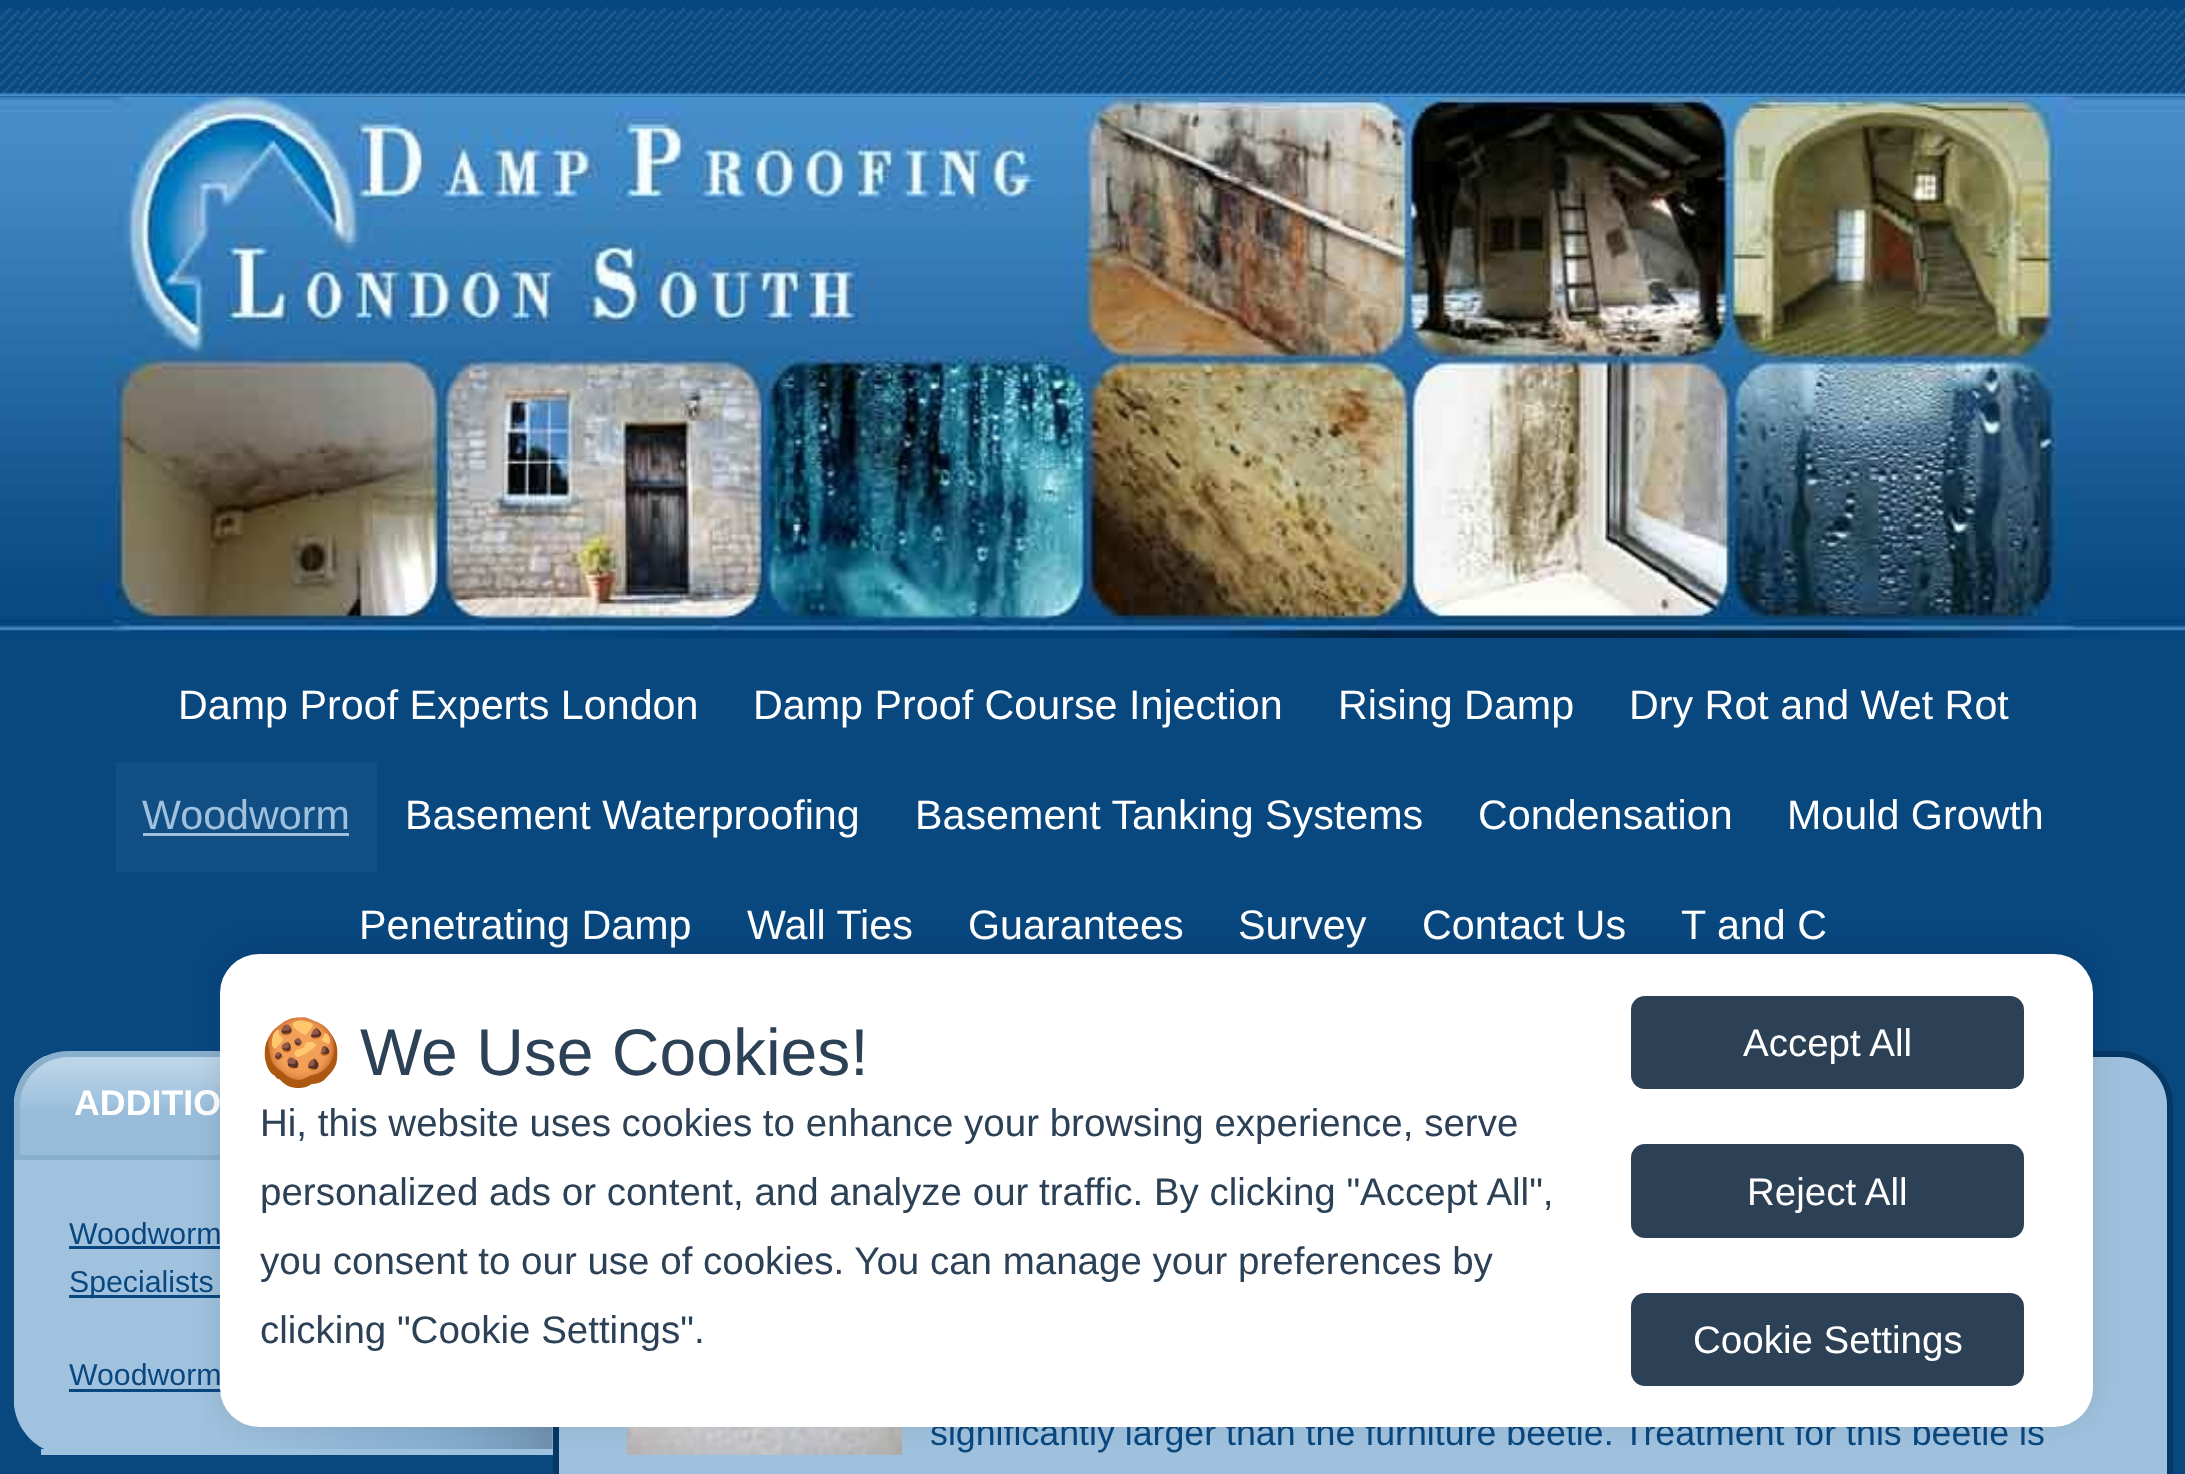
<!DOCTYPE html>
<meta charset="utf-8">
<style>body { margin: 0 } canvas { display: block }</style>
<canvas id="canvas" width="2185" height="1474"></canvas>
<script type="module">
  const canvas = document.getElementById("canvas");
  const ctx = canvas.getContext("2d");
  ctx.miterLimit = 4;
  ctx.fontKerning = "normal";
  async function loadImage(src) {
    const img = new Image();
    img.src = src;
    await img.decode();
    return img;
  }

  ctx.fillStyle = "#09477f";
  ctx.fillRect(0, 0, 2185, 1474);
  ctx.drawImage(await loadImage("img1.png"), 0, 0, 2185, 96);
  ctx.drawImage(await loadImage("img2.png"), 0, 96, 2185, 542);
  ctx.font = "41.25px Liberation Sans";
  ctx.fillStyle = "#ffffff";
  ctx.fillText("Damp Proof Experts London", 178, 719);
  ctx.fillText("Damp Proof Course Injection", 753, 719);
  ctx.fillText("Rising Damp", 1338, 719);
  ctx.fillText("Dry Rot and Wet Rot", 1629, 719);
  ctx.fillStyle = "#114e83";
  ctx.fillRect(116, 762, 261, 110);
  ctx.fillStyle = "#9fc1dd";
  ctx.fillText("Woodworm", 142, 829);
  ctx.fillRect(143, 833, 206, 3);
  ctx.fillStyle = "#ffffff";
  ctx.fillText("Basement Waterproofing", 405, 829);
  ctx.fillText("Basement Tanking Systems", 915, 829);
  ctx.fillText("Condensation", 1478, 829);
  ctx.fillText("Mould Growth", 1787, 829);
  ctx.fillText("Penetrating Damp", 359, 939);
  ctx.fillText("Wall Ties", 747, 939);
  ctx.fillText("Guarantees", 968, 939);
  ctx.fillText("Survey", 1238, 939);
  ctx.fillText("Contact Us", 1422, 939);
  ctx.fillText("T and C", 1681, 939);
  ctx.drawImage(await loadImage("img3.png"), 13, 1056, 207, 99);
  ctx.beginPath();
  ctx.roundRect(17, 1054, 533, 104, [52, 52, 0, 0]);
  ctx.strokeStyle = "#88afcc";
  ctx.lineWidth = 6;
  ctx.stroke();
  ctx.font = "bold 35.75px Liberation Sans";
  ctx.fillText("ADDITIO", 74, 1115);
  ctx.fillStyle = "#9fc1dd";
  ctx.beginPath();
  ctx.moveTo(14, 1160);
  ctx.lineTo(553, 1160);
  ctx.lineTo(553, 1449);
  ctx.lineTo(69, 1449);
  ctx.bezierCurveTo(38, 1449, 14, 1427, 14, 1400);
  ctx.closePath();
  ctx.fill();
  ctx.drawImage(await loadImage("img4.png"), 13, 1160, 540, 289);
  ctx.fillStyle = "#9ec1df";
  ctx.fillRect(41, 1449, 512, 6);
  ctx.font = "30.25px Liberation Sans";
  ctx.fillStyle = "#09477f";
  ctx.fillText("Woodworm", 69, 1244);
  ctx.fillRect(69, 1246, 151, 3);
  ctx.fillRect(69, 1295, 151, 3);
  ctx.fillText("Specialists", 69, 1292);
  ctx.fillText("Woodworm", 69, 1385);
  ctx.fillRect(69, 1389, 152, 3);
  ctx.fillStyle = "#9fc1dd";
  ctx.beginPath();
  ctx.roundRect(556, 1054, 1614, 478, 52);
  ctx.fill();
  ctx.strokeStyle = "#063866";
  ctx.stroke();
  ctx.drawImage(await loadImage("img5.png"), 627, 1427, 275, 28);
  ctx.font = "35.75px Liberation Sans";
  ctx.fillStyle = "#09477f";
  ctx.fillText("significantly larger than the furniture beetle. Treatment for this beetle is", 930, 1445);
  ctx.fillStyle = "rgba(0, 0, 0, 0.1)";
  ctx.filter = "blur(14px)";
  ctx.beginPath();
  ctx.roundRect(220, 949, 1873, 473, 39);
  ctx.fill();
  ctx.filter = "none";
  ctx.fillStyle = "#ffffff";
  ctx.beginPath();
  ctx.roundRect(220, 954, 1873, 473, 39);
  ctx.fill();
  ctx.font = "66px Noto Color Emoji";
  ctx.fillStyle = "#2d4156";
  ctx.fillText("🍪", 260, 1075);
  ctx.font = "66px Liberation Sans";
  ctx.fillText("We Use Cookies!", 360, 1075);
  ctx.font = "38.5px Liberation Sans";
  ctx.fillText("Hi, this website uses cookies to enhance your browsing experience, serve", 260, 1136);
  ctx.fillText("personalized ads or content, and analyze our traffic. By clicking \"Accept All\",", 260, 1205);
  ctx.fillText("you consent to our use of cookies. You can manage your preferences by", 260, 1274);
  ctx.fillText("clicking \"Cookie Settings\".", 260, 1343);
  ctx.beginPath();
  ctx.roundRect(1631, 996, 393, 93, 14);
  ctx.fill();
  ctx.fillStyle = "#ffffff";
  ctx.fillText("Accept All", 1743, 1056);
  ctx.fillStyle = "#2d4156";
  ctx.beginPath();
  ctx.roundRect(1631, 1144, 393, 94, 14);
  ctx.fill();
  ctx.fillStyle = "#ffffff";
  ctx.fillText("Reject All", 1747, 1205);
  ctx.fillStyle = "#2d4156";
  ctx.beginPath();
  ctx.roundRect(1631, 1293, 393, 93, 14);
  ctx.fill();
  ctx.fillStyle = "#ffffff";
  ctx.fillText("Cookie Settings", 1693, 1353);
</script>
